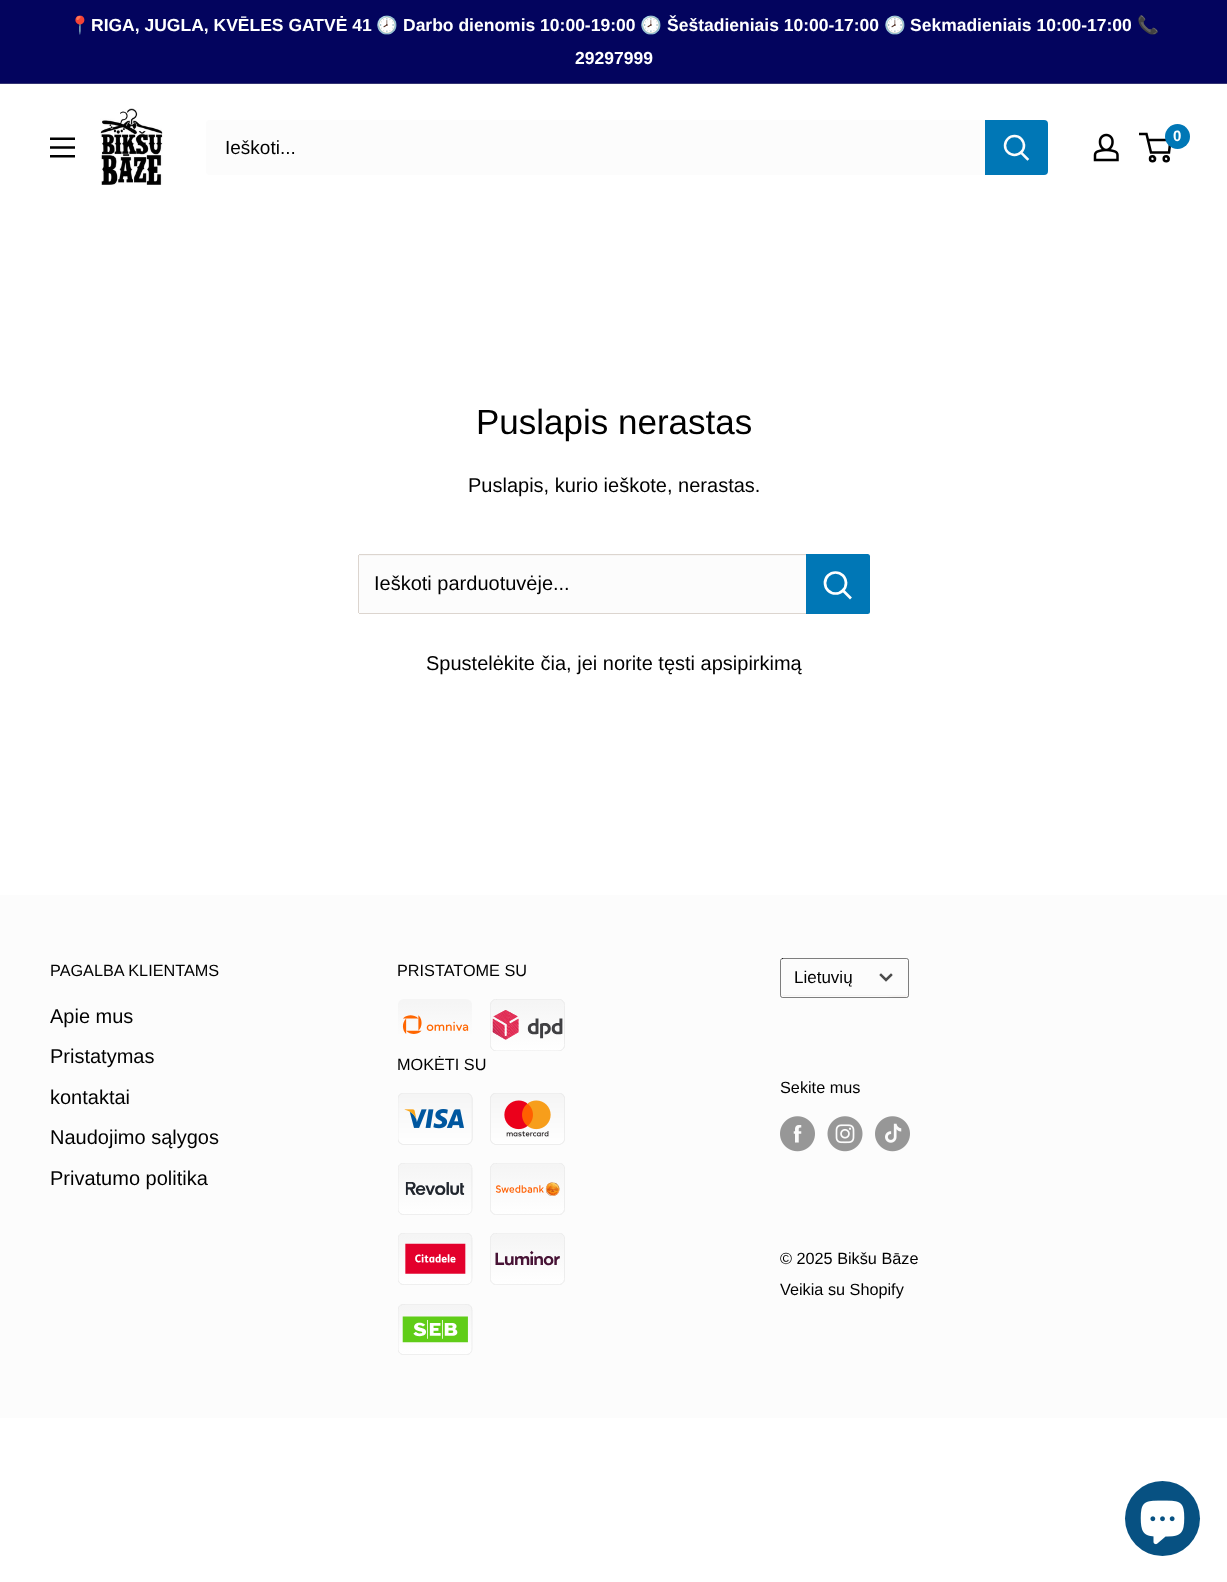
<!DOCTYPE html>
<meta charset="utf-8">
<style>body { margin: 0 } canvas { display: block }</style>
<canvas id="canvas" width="1227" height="1582"></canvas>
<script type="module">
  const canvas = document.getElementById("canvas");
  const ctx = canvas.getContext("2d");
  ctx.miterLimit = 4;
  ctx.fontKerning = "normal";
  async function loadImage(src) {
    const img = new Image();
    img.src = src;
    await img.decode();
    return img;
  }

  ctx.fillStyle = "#ffffff";
  ctx.fillRect(0, 0, 1227, 1582);
  ctx.fillStyle = "#03045e";
  ctx.fillRect(0, 0, 1227, 83);
  ctx.fillStyle = "#343473";
  ctx.fillRect(0, 83, 1227, 1);
  ctx.font = "bold 17.5px Noto Color Emoji";
  ctx.fillStyle = "#ffffff";
  ctx.fillText("📍", 69, 31);
  ctx.font = "bold 17.5px Liberation Sans";
  ctx.fillText("RIGA, JUGLA, KVĒLES GATVĖ 41", 91, 31);
  ctx.font = "bold 17.5px Noto Color Emoji";
  ctx.fillText("🕗", 376, 31);
  ctx.font = "bold 17.5px Liberation Sans";
  ctx.fillText("Darbo dienomis 10:00-19:00", 403, 31);
  ctx.font = "bold 17.5px Noto Color Emoji";
  ctx.fillText("🕗", 640, 31);
  ctx.font = "bold 17.5px Liberation Sans";
  ctx.fillText("Šeštadieniais 10:00-17:00", 667, 31);
  ctx.font = "bold 17.5px Noto Color Emoji";
  ctx.fillText("🕗", 884, 31);
  ctx.font = "bold 17.5px Liberation Sans";
  ctx.fillText("Sekmadieniais 10:00-17:00", 910, 31);
  ctx.font = "bold 17.5px Noto Color Emoji";
  ctx.fillText("📞", 1137, 31);
  ctx.font = "bold 17.5px Liberation Sans";
  ctx.fillText("29297999", 575, 64);
  ctx.drawImage(await loadImage("img1.png"), 50, 137, 25, 21);
  ctx.drawImage(await loadImage("img2.png"), 100, 108, 63, 77);
  ctx.fillStyle = "#fcfcfc";
  ctx.beginPath();
  ctx.roundRect(206, 120, 842, 55, 4);
  ctx.fill();
  ctx.font = "19px Liberation Sans";
  ctx.fillStyle = "#000000";
  ctx.fillText("Ieškoti...", 225, 154);
  ctx.fillStyle = "#0077b6";
  ctx.beginPath();
  ctx.roundRect(985, 120, 63, 55, [0, 4, 4, 0]);
  ctx.fill();
  ctx.beginPath();
  ctx.moveTo(1027.5, 159);
  ctx.lineTo(1021, 152.5);
  ctx.strokeStyle = "#fcfcfc";
  ctx.lineWidth = 2.5;
  ctx.lineCap = "square";
  ctx.stroke();
  ctx.beginPath();
  ctx.arc(1014.5, 145.5, 9.5, 0, Math.PI * 2);
  ctx.stroke();
  ctx.drawImage(await loadImage("img3.png"), 1093, 133, 26, 29);
  ctx.beginPath();
  ctx.arc(1152.5, 158.8, 2.5, 0, Math.PI * 2);
  ctx.strokeStyle = "#000000";
  ctx.stroke();
  ctx.beginPath();
  ctx.arc(1166.2, 158.8, 2.5, 0, Math.PI * 2);
  ctx.stroke();
  ctx.beginPath();
  ctx.moveTo(1148, 140);
  ctx.lineTo(1170.5, 140);
  ctx.lineTo(1169, 152.5);
  ctx.lineTo(1151, 152.5);
  ctx.lineTo(1146.5, 134);
  ctx.lineTo(1139, 134);
  ctx.lineCap = "butt";
  ctx.stroke();
  ctx.beginPath();
  ctx.arc(1177.5, 136.5, 12.5, 0, Math.PI * 2);
  ctx.fill();
  ctx.font = "bold 15px Liberation Sans";
  ctx.fillStyle = "#ffffff";
  ctx.fillText("0", 1173, 141);
  ctx.font = "35px Liberation Sans";
  ctx.fillStyle = "#000000";
  ctx.fillText("Puslapis nerastas", 476, 434);
  ctx.font = "20px Liberation Sans";
  ctx.fillText("Puslapis, kurio ieškote, nerastas.", 468, 492);
  ctx.fillStyle = "#fcfcfc";
  ctx.beginPath();
  ctx.roundRect(358, 554, 448, 60, [2.5, 0, 0, 2.5]);
  ctx.fill();
  ctx.fillStyle = "#f7f6f5";
  ctx.beginPath();
  ctx.moveTo(360, 556);
  ctx.lineTo(806, 556);
  ctx.lineTo(806, 555);
  ctx.lineTo(359, 555);
  ctx.lineTo(359, 558);
  ctx.bezierCurveTo(359, 557, 359, 556, 360, 556);
  ctx.closePath();
  ctx.fill();
  ctx.fillStyle = "#dcd5cf";
  ctx.fillRect(359, 554, 447, 1);
  ctx.fillRect(359, 613, 447, 1);
  ctx.fillRect(358, 555, 1, 58);
  ctx.fillStyle = "#000000";
  ctx.fillText("Ieškoti parduotuvėje...", 374, 590);
  ctx.fillStyle = "#0077b6";
  ctx.beginPath();
  ctx.roundRect(806, 554, 64, 60, [0, 2.5, 2.5, 0]);
  ctx.fill();
  ctx.beginPath();
  ctx.moveTo(850, 597.5);
  ctx.lineTo(843, 590.5);
  ctx.strokeStyle = "#ffffff";
  ctx.lineWidth = 2.7;
  ctx.lineCap = "square";
  ctx.stroke();
  ctx.beginPath();
  ctx.arc(835.5, 583, 10.5, 0, Math.PI * 2);
  ctx.stroke();
  ctx.fillStyle = "#000000";
  ctx.fillText("Spustelėkite čia, jei norite tęsti apsipirkimą", 426, 670);
  ctx.fillStyle = "#fcfcfc";
  ctx.fillRect(0, 895, 1227, 523);
  ctx.font = "16.25px Liberation Sans";
  ctx.fillStyle = "#000000";
  ctx.fillText("PAGALBA KLIENTAMS", 50, 976);
  ctx.font = "20px Liberation Sans";
  ctx.fillText("Apie mus", 50, 1023);
  ctx.fillText("Pristatymas", 50, 1063);
  ctx.fillText("kontaktai", 50, 1104);
  ctx.fillText("Naudojimo sąlygos", 50, 1144);
  ctx.fillText("Privatumo politika", 50, 1185);
  ctx.font = "16.25px Liberation Sans";
  ctx.fillText("PRISTATOME SU", 397, 976);
  ctx.drawImage(await loadImage("img4.png"), 398, 999, 74, 35);
  ctx.drawImage(await loadImage("img5.png"), 490, 999, 75, 52);
  ctx.fillText("MOKĖTI SU", 397, 1070);
  ctx.drawImage(await loadImage("img6.png"), 398, 1093, 75, 52);
  ctx.drawImage(await loadImage("img7.png"), 490, 1093, 75, 52);
  ctx.drawImage(await loadImage("img8.png"), 398, 1163, 75, 52);
  ctx.drawImage(await loadImage("img9.png"), 490, 1163, 75, 52);
  ctx.drawImage(await loadImage("img10.png"), 398, 1233, 75, 52);
  ctx.drawImage(await loadImage("img11.png"), 490, 1233, 75, 52);
  ctx.drawImage(await loadImage("img12.png"), 398, 1304, 75, 51);
  ctx.fillStyle = "#f6f4f3";
  ctx.beginPath();
  ctx.moveTo(781, 994);
  ctx.lineTo(781, 996);
  ctx.lineTo(886, 996);
  ctx.bezierCurveTo(888, 996, 908, 1001, 908, 994);
  ctx.lineTo(906, 995);
  ctx.lineTo(782, 995);
  ctx.closePath();
  ctx.fill();
  ctx.beginPath();
  ctx.roundRect(780.5, 958.5, 128, 39, 2);
  ctx.strokeStyle = "rgba(0, 0, 0, 0.5)";
  ctx.lineWidth = 1;
  ctx.stroke();
  ctx.font = "17px Liberation Sans";
  ctx.fillStyle = "#000000";
  ctx.fillText("Lietuvių", 794, 983);
  ctx.beginPath();
  ctx.moveTo(891, 975);
  ctx.lineTo(886, 980);
  ctx.lineTo(881, 975);
  ctx.strokeStyle = "#4c4c4c";
  ctx.lineWidth = 2.5;
  ctx.stroke();
  ctx.font = "16.25px Liberation Sans";
  ctx.fillText("Sekite mus", 780, 1093);
  ctx.drawImage(await loadImage("img13.png"), 780, 1116, 35, 36);
  ctx.drawImage(await loadImage("img14.png"), 827, 1116, 36, 36);
  ctx.drawImage(await loadImage("img15.png"), 875, 1116, 35, 36);
  ctx.fillText("© 2025 Bikšu Bāze", 780, 1264);
  ctx.fillText("Veikia su Shopify", 780, 1295);
  ctx.fillStyle = "#075182";
  ctx.beginPath();
  ctx.arc(1162.5, 1518.5, 37.5, 0, Math.PI * 2);
  ctx.fill();
  ctx.drawImage(await loadImage("img16.png"), 1140, 1500, 45, 45);
</script>
